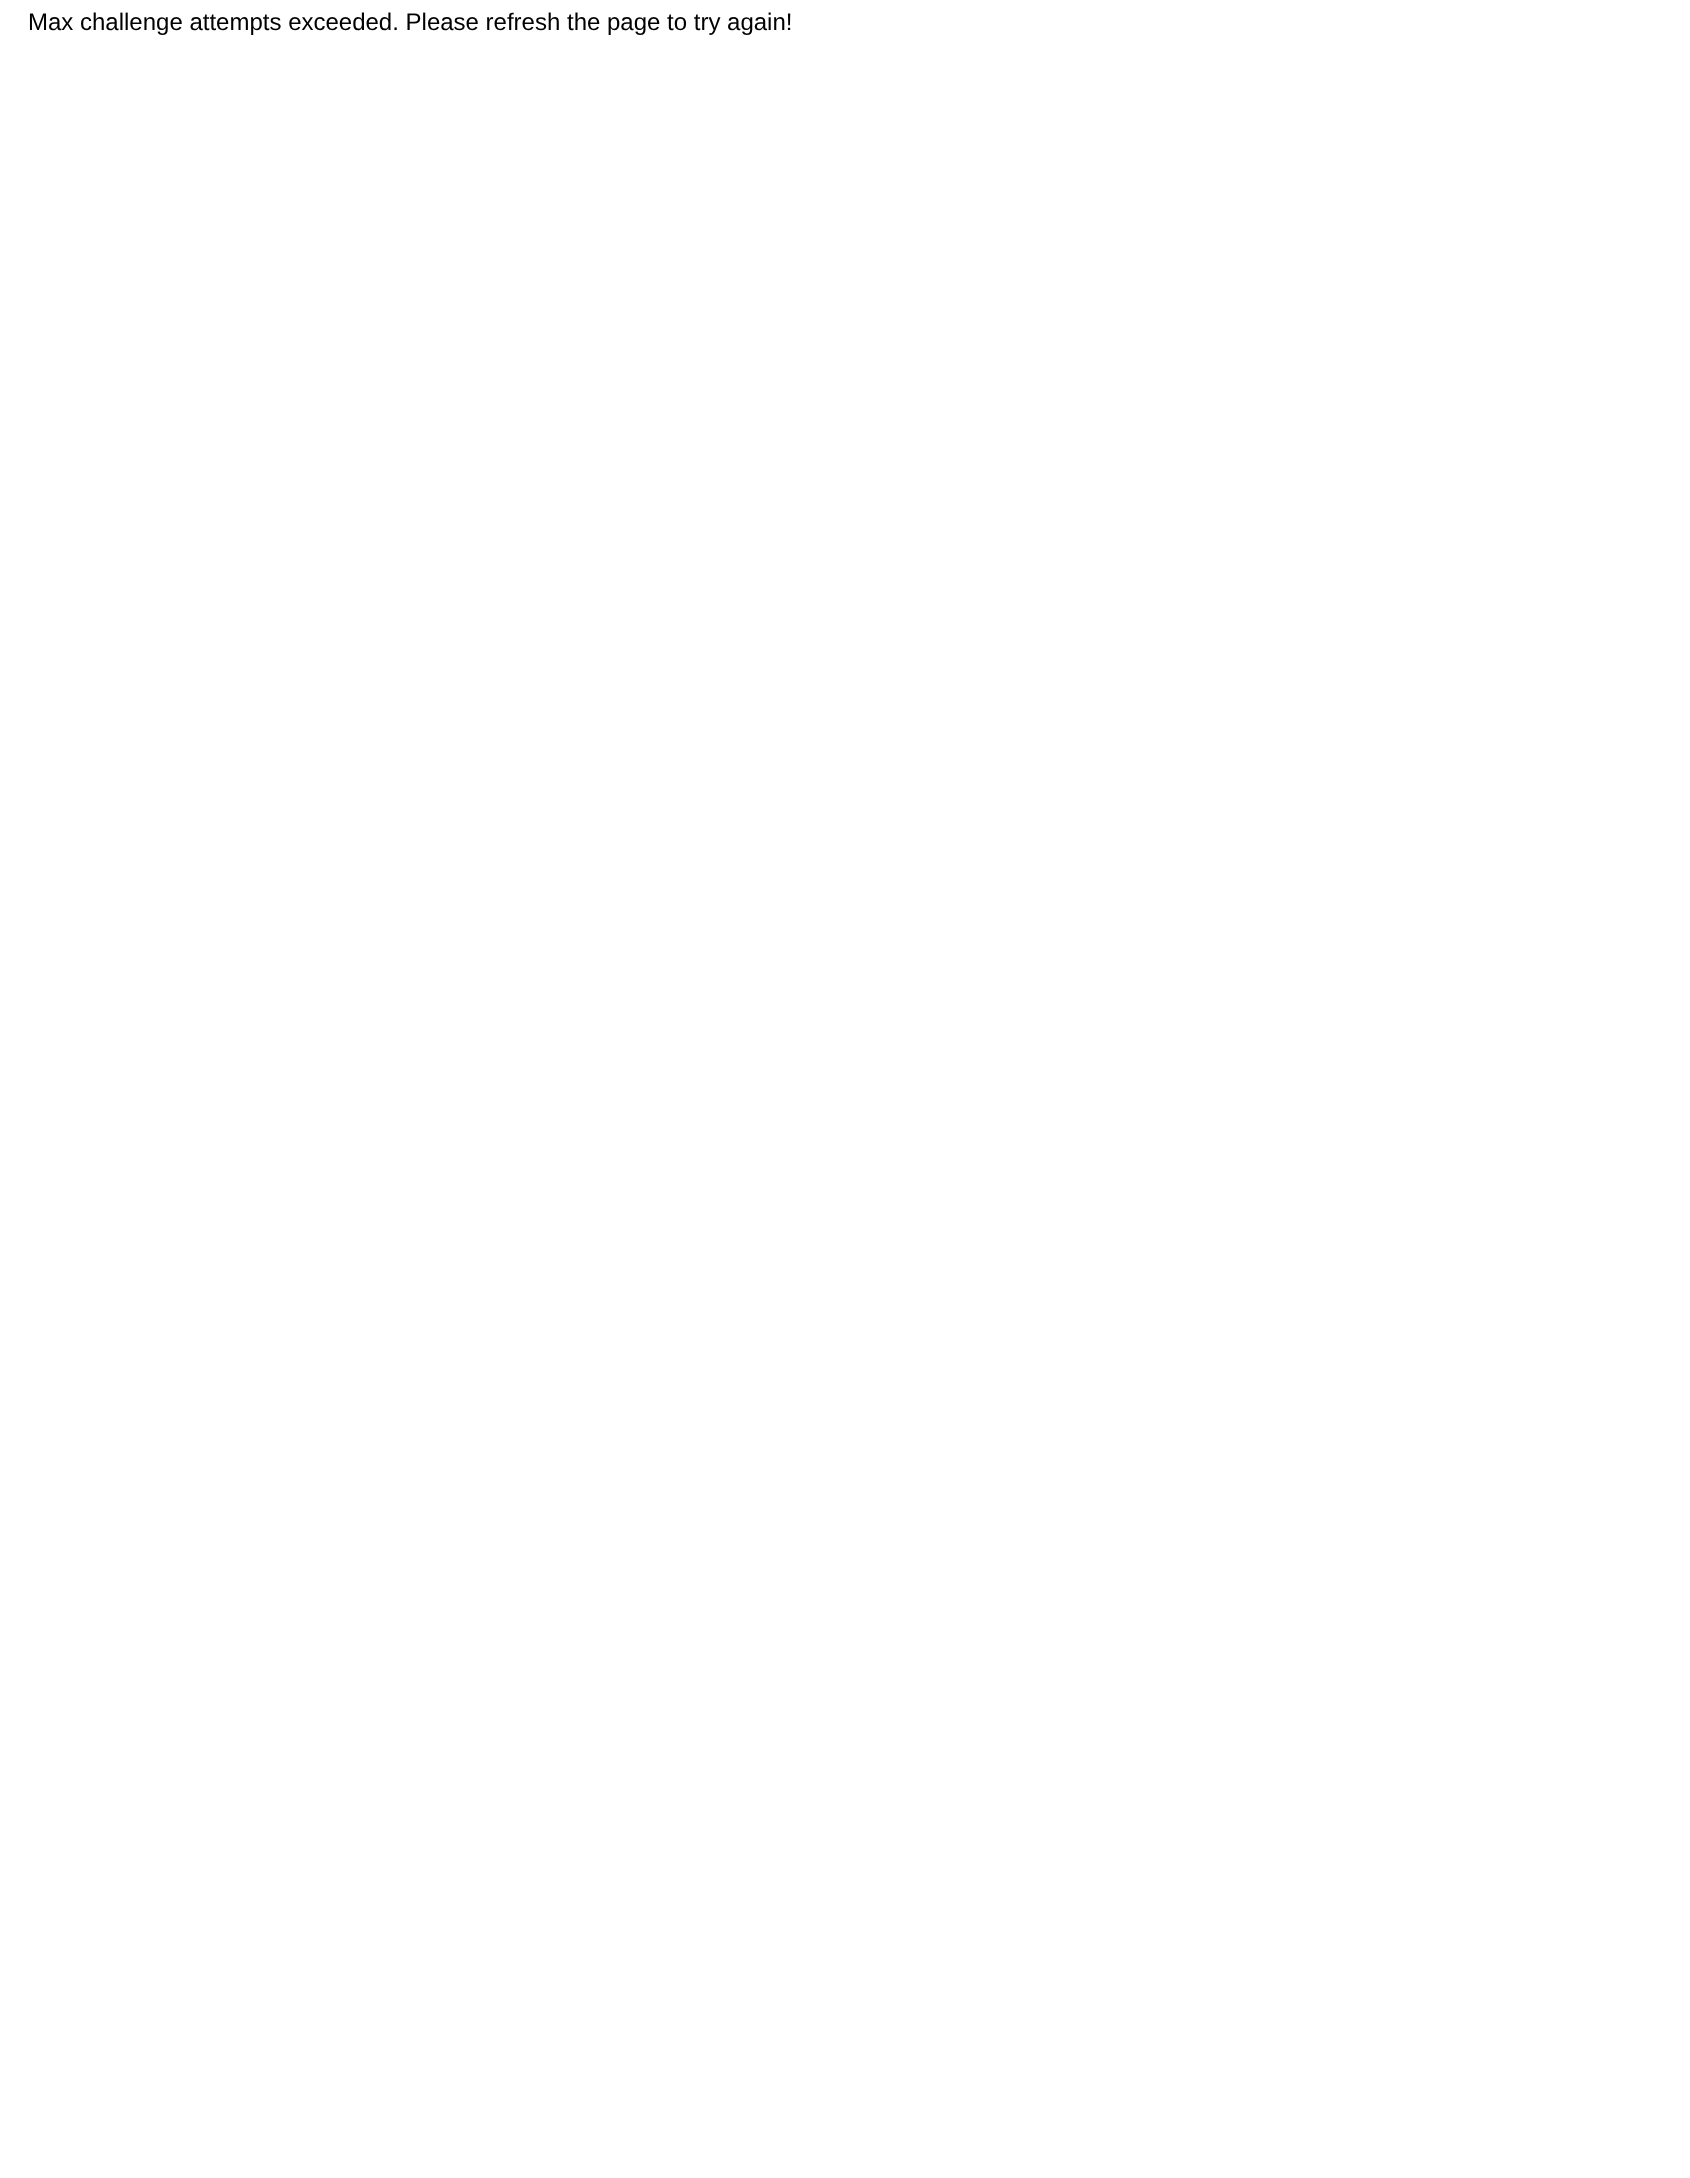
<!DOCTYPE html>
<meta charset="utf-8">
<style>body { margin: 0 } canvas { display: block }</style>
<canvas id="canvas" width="1690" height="2178"></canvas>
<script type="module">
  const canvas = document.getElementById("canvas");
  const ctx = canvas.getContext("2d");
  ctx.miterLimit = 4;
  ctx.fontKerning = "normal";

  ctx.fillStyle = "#ffffff";
  ctx.fillRect(0, 0, 1690, 2178);
  ctx.font = "24px Liberation Sans";
  ctx.fillStyle = "#000000";
  ctx.fillText("Max challenge attempts exceeded. Please refresh the page to try again!", 28, 30);
</script>
